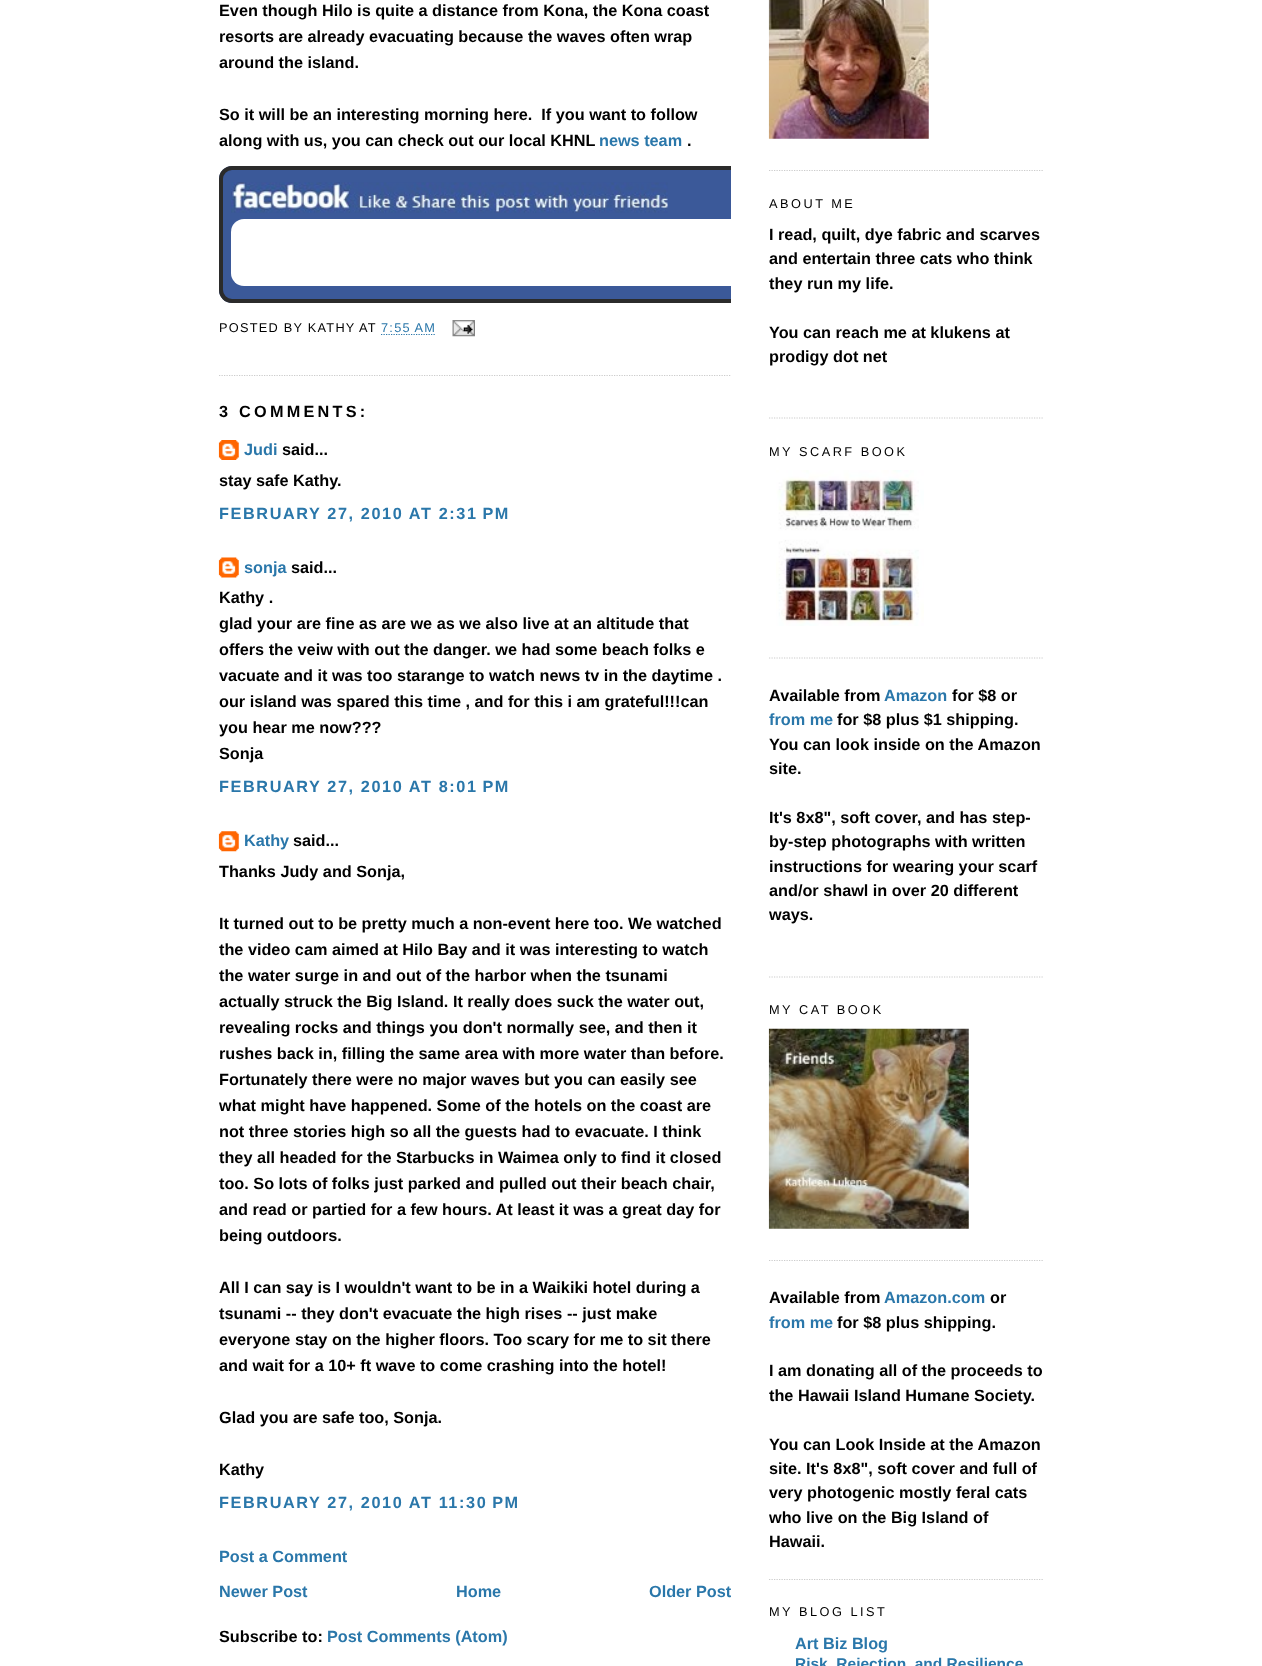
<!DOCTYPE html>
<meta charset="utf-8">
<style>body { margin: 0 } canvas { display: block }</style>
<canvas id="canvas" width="1262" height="1666"></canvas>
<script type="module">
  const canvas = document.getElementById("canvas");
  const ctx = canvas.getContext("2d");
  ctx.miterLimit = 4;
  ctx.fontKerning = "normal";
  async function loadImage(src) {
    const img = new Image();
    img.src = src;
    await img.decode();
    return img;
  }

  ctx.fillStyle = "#ffffff";
  ctx.fillRect(0, 0, 1262, 1666);
  ctx.beginPath();
  ctx.moveTo(219, 375.5);
  ctx.lineTo(731, 375.5);
  ctx.strokeStyle = "#cccccc";
  ctx.lineWidth = 1.2;
  ctx.setLineDash([1.25, 1.25]);
  ctx.stroke();
  ctx.font = "bold 16.25px Liberation Sans";
  ctx.fillStyle = "#000000";
  ctx.fillText("Even though Hilo is quite a distance from Kona, the Kona coast", 219, 16);
  ctx.fillText("resorts are already evacuating because the waves often wrap", 219, 42);
  ctx.fillText("around the island.", 219, 68);
  ctx.fillText("So it will be an interesting morning here.  If you want to follow", 219, 120);
  ctx.fillText("along with us, you can check out our local KHNL", 219, 146);
  ctx.fillStyle = "#2a77aa";
  ctx.fillText("news team", 599, 146);
  ctx.fillStyle = "#000000";
  ctx.fillText(".", 687, 146);
  ctx.fillStyle = "#3b5999";
  ctx.beginPath();
  ctx.roundRect(219, 166, 512, 137, [13, 0, 0, 13]);
  ctx.fill();
  ctx.save();
  ctx.beginPath();
  ctx.rect(219, 0, 512, 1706);
  ctx.clip();
  ctx.beginPath();
  ctx.roundRect(221, 168, 696, 133, 11);
  ctx.strokeStyle = "#2b2b2b";
  ctx.lineWidth = 4;
  ctx.setLineDash([]);
  ctx.stroke();
  ctx.restore();
  ctx.drawImage(await loadImage("img1.png"), 231, 182, 437, 31);
  ctx.fillStyle = "#ffffff";
  ctx.beginPath();
  ctx.roundRect(231, 219, 500, 67, [13, 0, 0, 13]);
  ctx.fill();
  ctx.letterSpacing = "1.25px";
  ctx.font = "12.75px Liberation Sans";
  ctx.fillStyle = "#000000";
  ctx.fillText("POSTED BY KATHY", 219, 332);
  ctx.fillText("AT", 359, 332);
  ctx.fillStyle = "#2a77aa";
  ctx.fillText("7:55 AM", 381, 332);
  ctx.beginPath();
  ctx.moveTo(381, 334.5);
  ctx.lineTo(436, 334.5);
  ctx.strokeStyle = "#2a77aa";
  ctx.stroke();
  ctx.drawImage(await loadImage("img2.png"), 452, 320, 23, 17);
  ctx.letterSpacing = "3.25px";
  ctx.font = "bold 16.25px Liberation Sans";
  ctx.fillStyle = "#000000";
  ctx.fillText("3 COMMENTS:", 219, 417);
  ctx.drawImage(await loadImage("img3.png"), 218, 440, 21, 20);
  ctx.letterSpacing = "0px";
  ctx.fillStyle = "#2a77aa";
  ctx.fillText("Judi", 244, 455);
  ctx.fillStyle = "#000000";
  ctx.fillText("said...", 282, 455);
  ctx.fillText("stay safe Kathy.", 219, 486);
  ctx.letterSpacing = "1.6px";
  ctx.fillStyle = "#2a77aa";
  ctx.fillText("FEBRUARY 27, 2010 AT 2:31 PM", 219, 519);
  ctx.drawImage(await loadImage("img4.png"), 218, 557, 21, 21);
  ctx.letterSpacing = "0px";
  ctx.fillText("sonja", 244, 573);
  ctx.fillStyle = "#000000";
  ctx.fillText("said...", 291, 573);
  ctx.fillText("Kathy .", 219, 603);
  ctx.fillText("glad your are fine as are we as we also live at an altitude that", 219, 629);
  ctx.fillText("offers the veiw with out the danger. we had some beach folks e", 219, 655);
  ctx.fillText("vacuate and it was too starange to watch news tv in the daytime .", 219, 681);
  ctx.fillText("our island was spared this time , and for this i am grateful!!!can", 219, 707);
  ctx.fillText("you hear me now???", 219, 733);
  ctx.fillText("Sonja", 219, 759);
  ctx.letterSpacing = "1.6px";
  ctx.fillStyle = "#2a77aa";
  ctx.fillText("FEBRUARY 27, 2010 AT 8:01 PM", 219, 792);
  ctx.drawImage(await loadImage("img5.png"), 218, 831, 21, 21);
  ctx.letterSpacing = "0px";
  ctx.fillText("Kathy", 244, 846);
  ctx.fillStyle = "#000000";
  ctx.fillText("said...", 293, 846);
  ctx.fillText("Thanks Judy and Sonja,", 219, 877);
  ctx.fillText("It turned out to be pretty much a non-event here too. We watched", 219, 929);
  ctx.fillText("the video cam aimed at Hilo Bay and it was interesting to watch", 219, 955);
  ctx.fillText("the water surge in and out of the harbor when the tsunami", 219, 981);
  ctx.fillText("actually struck the Big Island. It really does suck the water out,", 219, 1007);
  ctx.fillText("revealing rocks and things you don't normally see, and then it", 219, 1033);
  ctx.fillText("rushes back in, filling the same area with more water than before.", 219, 1059);
  ctx.fillText("Fortunately there were no major waves but you can easily see", 219, 1085);
  ctx.fillText("what might have happened. Some of the hotels on the coast are", 219, 1111);
  ctx.fillText("not three stories high so all the guests had to evacuate. I think", 219, 1137);
  ctx.fillText("they all headed for the Starbucks in Waimea only to find it closed", 219, 1163);
  ctx.fillText("too. So lots of folks just parked and pulled out their beach chair,", 219, 1189);
  ctx.fillText("and read or partied for a few hours. At least it was a great day for", 219, 1215);
  ctx.fillText("being outdoors.", 219, 1241);
  ctx.fillText("All I can say is I wouldn't want to be in a Waikiki hotel during a", 219, 1293);
  ctx.fillText("tsunami -- they don't evacuate the high rises -- just make", 219, 1319);
  ctx.fillText("everyone stay on the higher floors. Too scary for me to sit there", 219, 1345);
  ctx.fillText("and wait for a 10+ ft wave to come crashing into the hotel!", 219, 1371);
  ctx.fillText("Glad you are safe too, Sonja.", 219, 1423);
  ctx.fillText("Kathy", 219, 1475);
  ctx.letterSpacing = "1.6px";
  ctx.fillStyle = "#2a77aa";
  ctx.fillText("FEBRUARY 27, 2010 AT 11:30 PM", 219, 1508);
  ctx.letterSpacing = "0px";
  ctx.fillText("Post a Comment", 219, 1562);
  ctx.fillText("Newer Post", 219, 1597);
  ctx.fillText("Home", 456, 1597);
  ctx.fillText("Older Post", 649, 1597);
  ctx.fillStyle = "#000000";
  ctx.fillText("Subscribe to:", 219, 1642);
  ctx.fillStyle = "#2a77aa";
  ctx.fillText("Post Comments (Atom)", 327, 1642);
  ctx.beginPath();
  ctx.moveTo(769, 170.5);
  ctx.lineTo(1044, 170.5);
  ctx.strokeStyle = "#cccccc";
  ctx.stroke();
  ctx.drawImage(await loadImage("img6.png"), 768, 0, 161, 139);
  ctx.beginPath();
  ctx.moveTo(769, 418);
  ctx.lineTo(1044, 418);
  ctx.stroke();
  ctx.letterSpacing = "2.5px";
  ctx.font = "12.75px Liberation Sans";
  ctx.fillStyle = "#000000";
  ctx.fillText("ABOUT ME", 769, 208);
  ctx.letterSpacing = "0px";
  ctx.font = "bold 16.25px Liberation Sans";
  ctx.fillText("I read, quilt, dye fabric and scarves", 769, 240);
  ctx.fillText("and entertain three cats who think", 769, 264);
  ctx.fillText("they run my life.", 769, 289);
  ctx.fillText("You can reach me at klukens at", 769, 338);
  ctx.fillText("prodigy dot net", 769, 362);
  ctx.beginPath();
  ctx.moveTo(769, 658);
  ctx.lineTo(1044, 658);
  ctx.stroke();
  ctx.letterSpacing = "2.5px";
  ctx.font = "12.75px Liberation Sans";
  ctx.fillText("MY SCARF BOOK", 769, 456);
  ctx.drawImage(await loadImage("img7.png"), 776, 470, 148, 156);
  ctx.beginPath();
  ctx.moveTo(769, 977);
  ctx.lineTo(1044, 977);
  ctx.stroke();
  ctx.letterSpacing = "0px";
  ctx.font = "bold 16.25px Liberation Sans";
  ctx.fillText("Available from", 769, 701);
  ctx.fillStyle = "#2a77aa";
  ctx.fillText("Amazon", 884, 701);
  ctx.fillStyle = "#000000";
  ctx.fillText("for $8 or", 952, 701);
  ctx.fillStyle = "#2a77aa";
  ctx.fillText("from me", 769, 725);
  ctx.fillStyle = "#000000";
  ctx.fillText("for $8 plus $1 shipping.", 837, 725);
  ctx.fillText("You can look inside on the Amazon", 769, 750);
  ctx.fillText("site.", 769, 774);
  ctx.fillText("It's 8x8\", soft cover, and has step-", 769, 823);
  ctx.fillText("by-step photographs with written", 769, 847);
  ctx.fillText("instructions for wearing your scarf", 769, 872);
  ctx.fillText("and/or shawl in over 20 different", 769, 896);
  ctx.fillText("ways.", 769, 920);
  ctx.beginPath();
  ctx.moveTo(769, 1260.5);
  ctx.lineTo(1044, 1260.5);
  ctx.stroke();
  ctx.letterSpacing = "2.5px";
  ctx.font = "12.75px Liberation Sans";
  ctx.fillText("MY CAT BOOK", 769, 1014);
  ctx.drawImage(await loadImage("img8.png"), 768, 1028, 201, 201);
  ctx.beginPath();
  ctx.moveTo(769, 1579.5);
  ctx.lineTo(1044, 1579.5);
  ctx.stroke();
  ctx.letterSpacing = "0px";
  ctx.font = "bold 16.25px Liberation Sans";
  ctx.fillText("Available from", 769, 1303);
  ctx.fillStyle = "#2a77aa";
  ctx.fillText("Amazon.com", 884, 1303);
  ctx.fillStyle = "#000000";
  ctx.fillText("or", 990, 1303);
  ctx.fillStyle = "#2a77aa";
  ctx.fillText("from me", 769, 1328);
  ctx.fillStyle = "#000000";
  ctx.fillText("for $8 plus shipping.", 837, 1328);
  ctx.fillText("I am donating all of the proceeds to", 769, 1376);
  ctx.fillText("the Hawaii Island Humane Society.", 769, 1401);
  ctx.fillText("You can Look Inside at the Amazon", 769, 1450);
  ctx.fillText("site. It's 8x8\", soft cover and full of", 769, 1474);
  ctx.fillText("very photogenic mostly feral cats", 769, 1498);
  ctx.fillText("who live on the Big Island of", 769, 1523);
  ctx.fillText("Hawaii.", 769, 1547);
  ctx.letterSpacing = "2.5px";
  ctx.font = "12.75px Liberation Sans";
  ctx.fillText("MY BLOG LIST", 769, 1616);
  ctx.letterSpacing = "0px";
  ctx.font = "bold 16.25px Liberation Sans";
  ctx.fillStyle = "#2a77aa";
  ctx.fillText("Art Biz Blog", 795, 1649);
  ctx.font = "bold 15.5px Liberation Sans";
  ctx.fillText("Risk, Rejection, and Resilience", 795, 1669);
</script>
